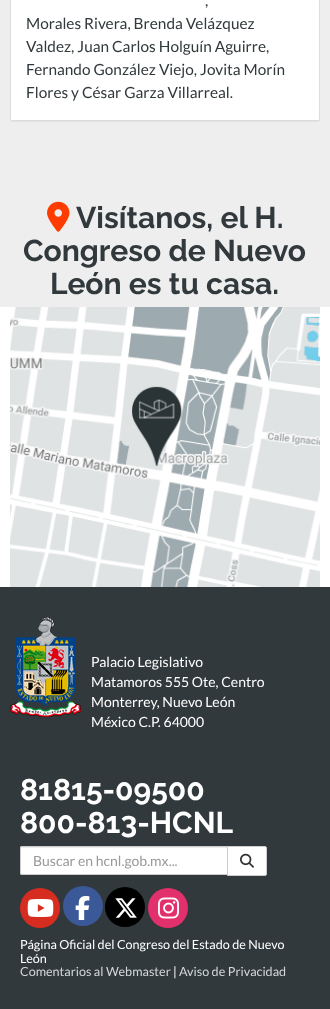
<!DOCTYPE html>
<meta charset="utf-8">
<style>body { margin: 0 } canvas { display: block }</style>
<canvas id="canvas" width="330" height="1009"></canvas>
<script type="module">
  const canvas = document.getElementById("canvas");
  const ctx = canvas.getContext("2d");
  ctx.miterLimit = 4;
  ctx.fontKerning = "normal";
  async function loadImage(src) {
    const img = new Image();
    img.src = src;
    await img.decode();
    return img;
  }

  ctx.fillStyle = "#eeeeee";
  ctx.fillRect(0, 0, 330, 1009);
  ctx.fillStyle = "rgba(0, 0, 0, 0.05)";
  ctx.filter = "blur(0.5px)";
  ctx.beginPath();
  ctx.roundRect(10, -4, 310, 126, 2);
  ctx.fill();
  ctx.filter = "none";
  ctx.fillStyle = "#ffffff";
  ctx.beginPath();
  ctx.roundRect(10.5, -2.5, 309, 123, 1.5);
  ctx.fill();
  ctx.strokeStyle = "#dddddd";
  ctx.stroke();
  ctx.font = "15.4px Lato";
  ctx.fillStyle = "#31393c";
  ctx.fillText(",", 205, 6);
  ctx.fillText("Morales Rivera, Brenda Velázquez", 26, 29);
  ctx.fillText("Valdez, Juan Carlos Holguín Aguirre,", 26, 52);
  ctx.fillText("Fernando González Viejo, Jovita Morín", 26, 75);
  ctx.fillText("Flores y César Garza Villarreal.", 26, 98);
  ctx.drawImage(await loadImage("img1.png"), 47, 201, 23, 31);
  ctx.font = "bold 30px Raleway";
  ctx.fillText("Visítanos, el H.", 76, 228);
  ctx.fillText("Congreso de Nuevo", 23, 261);
  ctx.fillText("León es tu casa.", 50, 294);
  ctx.fillStyle = "#ffffff";
  ctx.fillRect(0, 307, 330, 280);
  ctx.drawImage(await loadImage("img2.png"), 10, 307, 310, 280);
  ctx.fillStyle = "#31393c";
  ctx.fillRect(0, 587, 330, 422);
  ctx.drawImage(await loadImage("img3.png"), 10, 617, 71, 100);
  ctx.font = "14px Lato";
  ctx.fillStyle = "#ffffff";
  ctx.fillText("Palacio Legislativo", 91, 667);
  ctx.fillText("Matamoros 555 Ote, Centro", 91, 687);
  ctx.fillText("Monterrey, Nuevo León", 91, 707);
  ctx.fillText("México C.P. 64000", 91, 727);
  ctx.font = "bold 30px Raleway";
  ctx.fillText("81815-09500", 20, 800);
  ctx.fillText("800-813-HCNL", 20, 833);
  ctx.beginPath();
  ctx.roundRect(20, 846, 208, 29, [2, 0, 0, 2]);
  ctx.fill();
  ctx.fillStyle = "#ececec";
  ctx.beginPath();
  ctx.moveTo(22, 847);
  ctx.lineTo(21, 848);
  ctx.lineTo(227, 848);
  ctx.lineTo(227, 847);
  ctx.closePath();
  ctx.fill();
  ctx.beginPath();
  ctx.roundRect(20.5, 846.5, 207, 28, [1.5, 0, 0, 1.5]);
  ctx.strokeStyle = "#cccccc";
  ctx.stroke();
  ctx.font = "14px Lato";
  ctx.fillStyle = "#999999";
  ctx.fillText("Buscar en hcnl.gob.mx...", 33, 866);
  ctx.fillStyle = "#ffffff";
  ctx.beginPath();
  ctx.roundRect(227.5, 846.5, 39, 29, [0, 1.5, 1.5, 0]);
  ctx.fill();
  ctx.stroke();
  ctx.drawImage(await loadImage("img4.png"), 240, 853, 14, 15);
  ctx.fillStyle = "#d62d20";
  ctx.beginPath();
  ctx.arc(40, 908, 20, 0, Math.PI * 2);
  ctx.fill();
  ctx.drawImage(await loadImage("img5.png"), 27, 899, 27, 18);
  ctx.fillStyle = "#3b5998";
  ctx.beginPath();
  ctx.arc(83, 906, 20, 0, Math.PI * 2);
  ctx.fill();
  ctx.drawImage(await loadImage("img6.png"), 75, 896, 15, 24);
  ctx.fillStyle = "#000000";
  ctx.beginPath();
  ctx.arc(125, 907, 20, 0, Math.PI * 2);
  ctx.fill();
  ctx.drawImage(await loadImage("img7.png"), 115, 898, 22, 20);
  ctx.fillStyle = "#e1306c";
  ctx.beginPath();
  ctx.arc(168, 908, 20, 0, Math.PI * 2);
  ctx.fill();
  ctx.drawImage(await loadImage("img8.png"), 158, 897, 21, 22);
  ctx.font = "12.6px Lato";
  ctx.fillStyle = "#ffffff";
  ctx.fillText("Página Oficial del Congreso del Estado de Nuevo", 20, 949);
  ctx.fillText("León", 20, 963);
  ctx.fillStyle = "#d2d8d9";
  ctx.fillText("Comentarios al Webmaster", 20, 976);
  ctx.fillStyle = "#ffffff";
  ctx.fillText("|", 173, 976);
  ctx.fillStyle = "#d2d8d9";
  ctx.fillText("Aviso de Privacidad", 179, 976);
</script>
